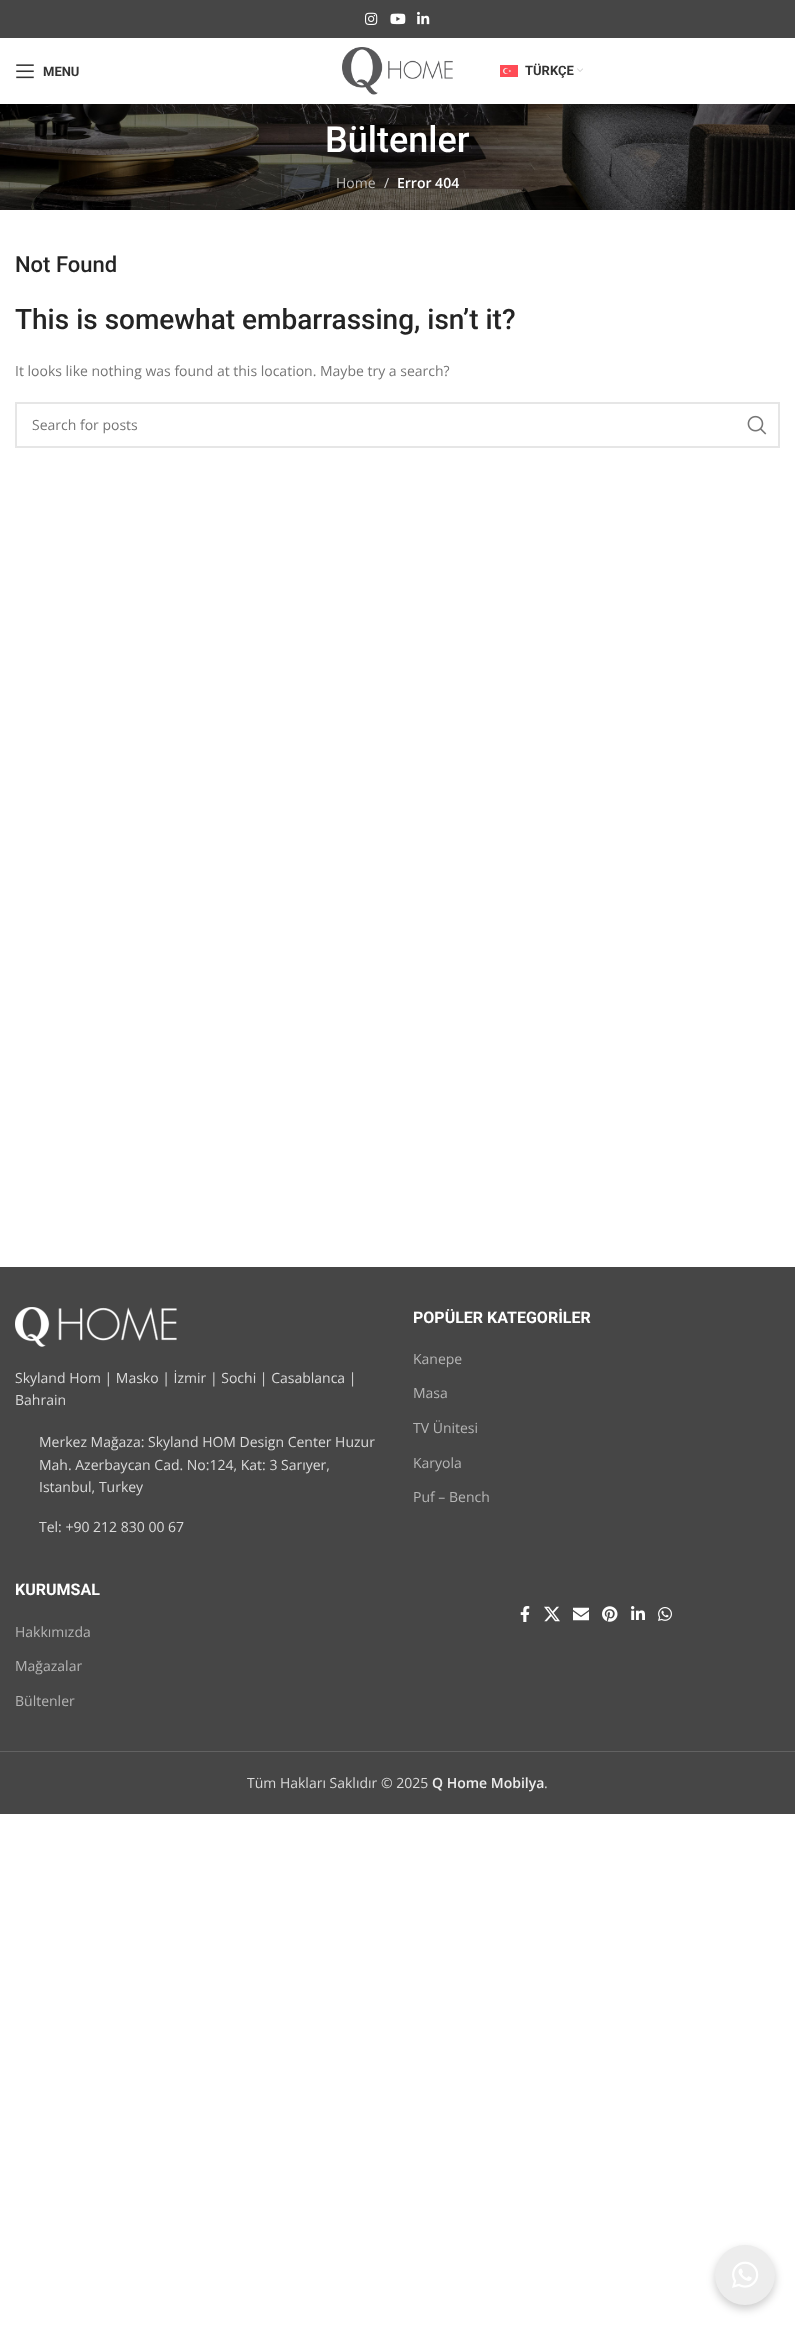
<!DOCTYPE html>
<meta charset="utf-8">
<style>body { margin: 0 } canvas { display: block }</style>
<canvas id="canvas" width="795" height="2325"></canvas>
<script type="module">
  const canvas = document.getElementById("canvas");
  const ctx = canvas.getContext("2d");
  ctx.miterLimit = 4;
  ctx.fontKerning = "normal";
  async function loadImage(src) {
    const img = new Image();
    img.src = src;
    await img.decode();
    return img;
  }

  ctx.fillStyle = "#ffffff";
  ctx.fillRect(0, 0, 795, 2325);
  ctx.fillStyle = "#464646";
  ctx.fillRect(0, 0, 795, 38);
  ctx.drawImage(await loadImage("img1.png"), 365, 12, 13, 13);
  ctx.drawImage(await loadImage("img2.png"), 390, 13, 16, 12);
  ctx.drawImage(await loadImage("img3.png"), 417, 11, 13, 14);
  ctx.drawImage(await loadImage("img4.png"), 16, 64, 18, 15);
  ctx.font = "bold 13px Roboto";
  ctx.fillStyle = "#333333";
  ctx.fillText("MENU", 43, 76);
  ctx.drawImage(await loadImage("img5.png"), 342, 47, 111, 48);
  ctx.drawImage(await loadImage("img6.png"), 500, 65, 18, 12);
  ctx.fillText("TÜRKÇE", 525, 75);
  ctx.drawImage(await loadImage("img7.png"), 577, 68, 6, 4);
  ctx.drawImage(await loadImage("img8.png"), 0, 104, 795, 106);
  ctx.font = "500 36px Roboto";
  ctx.fillStyle = "#ffffff";
  ctx.fillText("Bültenler", 325, 152);
  ctx.font = "14px Open Sans";
  ctx.fillStyle = "#bfbdba";
  ctx.fillText("Home", 336, 188);
  ctx.fillStyle = "#d5d4d3";
  ctx.fillText("/", 384, 188);
  ctx.font = "600 14px Open Sans";
  ctx.fillStyle = "#ffffff";
  ctx.fillText("Error 404", 397, 188);
  ctx.font = "500 22px Roboto";
  ctx.fillStyle = "#242424";
  ctx.fillText("Not Found", 15, 272);
  ctx.font = "500 28px Roboto";
  ctx.fillText("This is somewhat embarrassing, isn’t it?", 15, 329);
  ctx.font = "14px Open Sans";
  ctx.fillStyle = "#767676";
  ctx.fillText("It looks like nothing was found at this location. Maybe try a search?", 15, 376);
  ctx.strokeStyle = "#e6e6e6";
  ctx.lineWidth = 2;
  ctx.strokeRect(16, 403, 763, 44);
  ctx.fillText("Search for posts", 32, 430);
  ctx.drawImage(await loadImage("img9.png"), 747, 415, 20, 20);
  ctx.fillStyle = "#464646";
  ctx.fillRect(0, 1267, 795, 547);
  ctx.drawImage(await loadImage("img10.png"), 15, 1307, 162, 40);
  ctx.fillStyle = "#dadada";
  ctx.fillText("Skyland Hom | Masko | İzmir | Sochi | Casablanca |", 15, 1383);
  ctx.fillText("Bahrain", 15, 1405);
  ctx.fillText("Merkez Mağaza: Skyland HOM Design Center Huzur", 39, 1447);
  ctx.fillText("Mah. Azerbaycan Cad. No:124, Kat: 3 Sarıyer,", 39, 1470);
  ctx.fillText("Istanbul, Turkey", 39, 1492);
  ctx.fillText("Tel: +90 212 830 00 67", 39, 1532);
  ctx.font = "bold 16px Roboto";
  ctx.fillStyle = "#ffffff";
  ctx.fillText("POPÜLER KATEGORİLER", 413, 1323);
  ctx.font = "14px Open Sans";
  ctx.fillStyle = "#b5b5b5";
  ctx.fillText("Kanepe", 413, 1364);
  ctx.fillText("Masa", 413, 1398);
  ctx.fillText("TV Ünitesi", 413, 1433);
  ctx.fillText("Karyola", 413, 1468);
  ctx.fillText("Puf – Bench", 413, 1502);
  ctx.font = "bold 16px Roboto";
  ctx.fillStyle = "#ffffff";
  ctx.fillText("KURUMSAL", 15, 1595);
  ctx.font = "14px Open Sans";
  ctx.fillStyle = "#b5b5b5";
  ctx.fillText("Hakkımızda", 15, 1637);
  ctx.fillText("Mağazalar", 15, 1671);
  ctx.fillText("Bültenler", 15, 1706);
  ctx.drawImage(await loadImage("img11.png"), 520, 1606, 10, 16);
  ctx.drawImage(await loadImage("img12.png"), 544, 1606, 16, 16);
  ctx.drawImage(await loadImage("img13.png"), 573, 1607, 16, 14);
  ctx.drawImage(await loadImage("img14.png"), 602, 1606, 16, 16);
  ctx.drawImage(await loadImage("img15.png"), 631, 1606, 14, 14);
  ctx.drawImage(await loadImage("img16.png"), 658, 1607, 14, 14);
  ctx.fillStyle = "#626262";
  ctx.fillRect(0, 1751, 795, 1);
  ctx.fillStyle = "#dadada";
  ctx.fillText("Tüm Hakları Saklıdır © 2025", 247, 1788);
  ctx.font = "600 14px Open Sans";
  ctx.fillStyle = "#ededed";
  ctx.fillText("Q Home Mobilya", 432, 1788);
  ctx.font = "14px Open Sans";
  ctx.fillStyle = "#dadada";
  ctx.fillText(".", 544, 1788);
  ctx.fillStyle = "rgba(0, 0, 0, 0.2)";
  ctx.filter = "blur(4px)";
  ctx.beginPath();
  ctx.roundRect(715, 2249, 60, 60, 30);
  ctx.fill();
  ctx.filter = "none";
  ctx.fillStyle = "#ededed";
  ctx.beginPath();
  ctx.arc(745, 2275, 30, 0, Math.PI * 2);
  ctx.fill();
  ctx.drawImage(await loadImage("img17.png"), 732, 2261, 27, 27);
</script>
